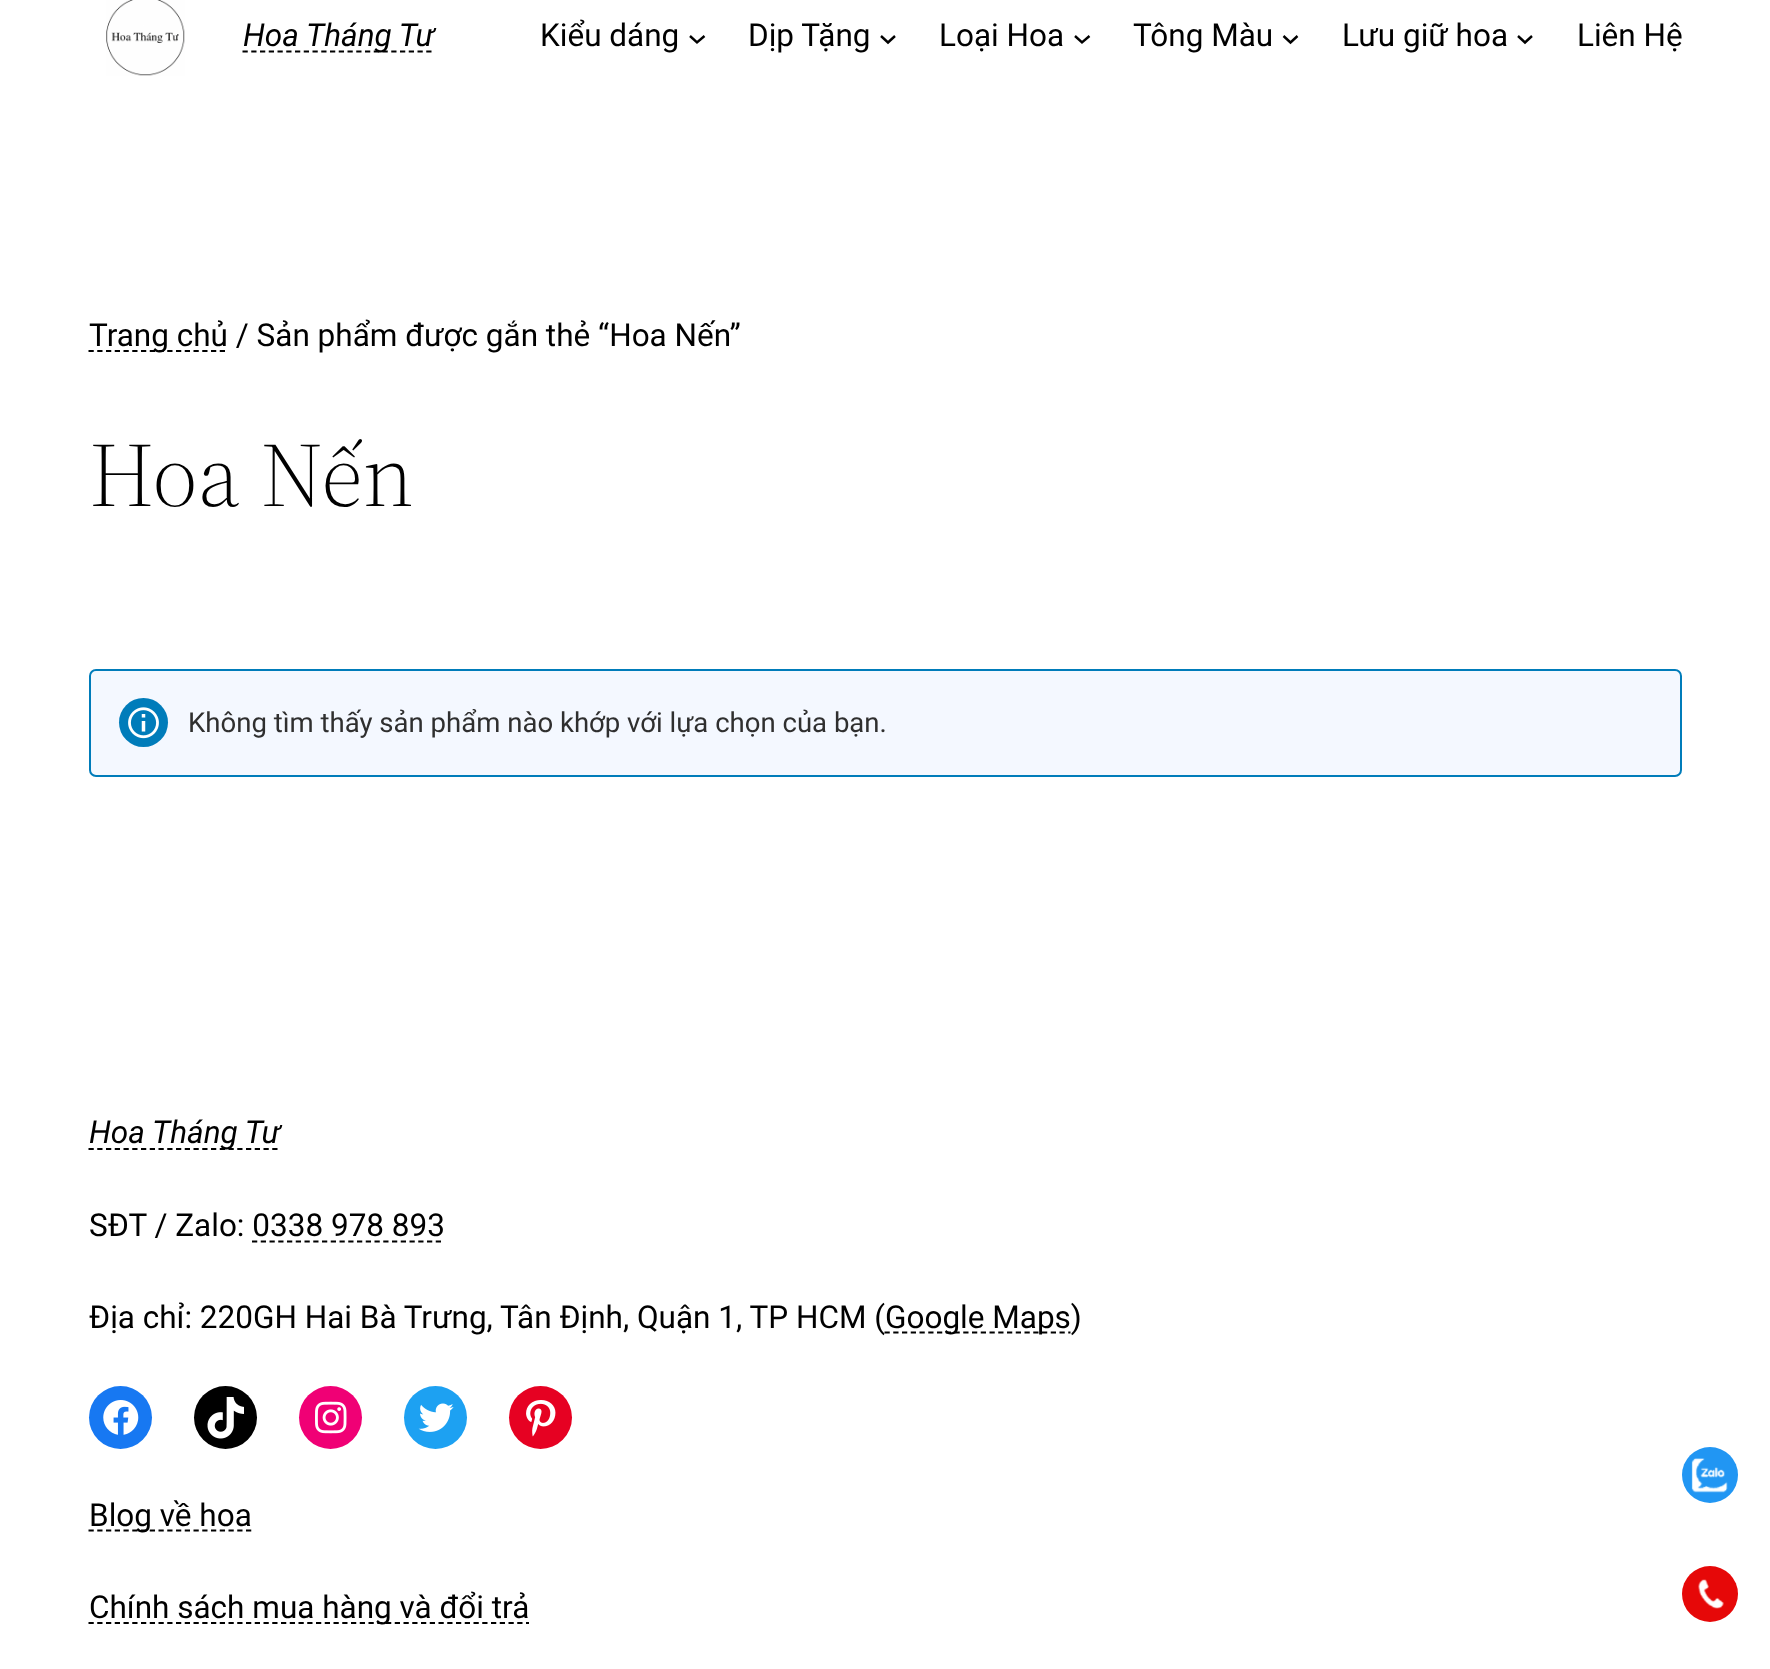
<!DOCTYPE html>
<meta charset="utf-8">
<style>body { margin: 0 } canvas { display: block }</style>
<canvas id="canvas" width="1770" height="1669"></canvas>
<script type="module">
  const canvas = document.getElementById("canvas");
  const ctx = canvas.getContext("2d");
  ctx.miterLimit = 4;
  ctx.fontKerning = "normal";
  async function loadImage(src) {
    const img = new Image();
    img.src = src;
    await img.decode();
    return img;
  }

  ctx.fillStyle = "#ffffff";
  ctx.fillRect(0, 0, 1770, 1669);
  ctx.drawImage(await loadImage("img1.png"), 106, 0, 79, 76);
  ctx.beginPath();
  ctx.moveTo(242.5, 51.5);
  ctx.lineTo(434, 51.5);
  ctx.strokeStyle = "#000000";
  ctx.lineWidth = 1.8;
  ctx.setLineDash([5.25, 3.5]);
  ctx.stroke();
  ctx.font = "italic 31.5px Roboto";
  ctx.fillStyle = "#000000";
  ctx.fillText("Hoa Tháng Tư", 243, 46);
  ctx.font = "31.5px Roboto";
  ctx.fillText("Kiểu dáng", 540, 46);
  ctx.beginPath();
  ctx.moveTo(690, 36);
  ctx.lineTo(697, 42.5);
  ctx.lineTo(704.5, 36);
  ctx.lineWidth = 2.4;
  ctx.setLineDash([]);
  ctx.stroke();
  ctx.fillText("Dịp Tặng", 748, 46);
  ctx.beginPath();
  ctx.moveTo(881, 36);
  ctx.lineTo(888, 42.5);
  ctx.lineTo(895, 36);
  ctx.stroke();
  ctx.fillText("Loại Hoa", 939, 46);
  ctx.beginPath();
  ctx.moveTo(1075, 36);
  ctx.lineTo(1082, 42.5);
  ctx.lineTo(1089.5, 36);
  ctx.stroke();
  ctx.fillText("Tông Màu", 1133, 46);
  ctx.beginPath();
  ctx.moveTo(1283.5, 36);
  ctx.lineTo(1290.5, 42.5);
  ctx.lineTo(1297.5, 36);
  ctx.stroke();
  ctx.fillText("Lưu giữ hoa", 1342, 46);
  ctx.beginPath();
  ctx.moveTo(1518, 36);
  ctx.lineTo(1525, 42.5);
  ctx.lineTo(1532, 36);
  ctx.stroke();
  ctx.fillText("Liên Hệ", 1577, 46);
  ctx.beginPath();
  ctx.moveTo(88.5, 351);
  ctx.lineTo(227.5, 351);
  ctx.lineWidth = 1.8;
  ctx.setLineDash([5.25, 3.5]);
  ctx.stroke();
  ctx.fillText("Trang chủ / Sản phẩm được gắn thẻ “Hoa Nến”", 89, 346);
  ctx.font = "300 91px 'Source Serif 4'";
  ctx.fillText("Hoa Nến", 89, 506);
  ctx.fillStyle = "#f4f8ff";
  ctx.beginPath();
  ctx.roundRect(90, 670, 1591, 106, 6);
  ctx.fill();
  ctx.strokeStyle = "#007cba";
  ctx.lineWidth = 2;
  ctx.setLineDash([]);
  ctx.stroke();
  ctx.fillStyle = "#007cba";
  ctx.beginPath();
  ctx.arc(143.5, 722.5, 24.5, 0, Math.PI * 2);
  ctx.fill();
  ctx.drawImage(await loadImage("img2.png"), 128, 707, 31, 32);
  ctx.font = "27.55px Roboto";
  ctx.fillStyle = "#2f2f2f";
  ctx.fillText("Không tìm thấy sản phẩm nào khớp với lựa chọn của bạn.", 188, 732);
  ctx.beginPath();
  ctx.moveTo(88.5, 1149);
  ctx.lineTo(280, 1149);
  ctx.strokeStyle = "#000000";
  ctx.lineWidth = 1.8;
  ctx.setLineDash([5.25, 3.5]);
  ctx.stroke();
  ctx.font = "italic 31.5px Roboto";
  ctx.fillStyle = "#000000";
  ctx.fillText("Hoa Tháng Tư", 89, 1143);
  ctx.font = "31.5px Roboto";
  ctx.fillText("SĐT / Zalo: 0338 978 893", 89, 1236);
  ctx.beginPath();
  ctx.moveTo(252, 1241.5);
  ctx.lineTo(444.5, 1241.5);
  ctx.stroke();
  ctx.fillText("Địa chỉ: 220GH Hai Bà Trưng, Tân Định, Quận 1, TP HCM (", 89, 1328);
  ctx.beginPath();
  ctx.moveTo(884.5, 1332.5);
  ctx.lineTo(1070.5, 1332.5);
  ctx.stroke();
  ctx.fillText("Google Maps)", 885, 1328);
  ctx.fillStyle = "#1778f2";
  ctx.beginPath();
  ctx.arc(120.5, 1417.5, 31.5, 0, Math.PI * 2);
  ctx.fill();
  ctx.drawImage(await loadImage("img3.png"), 103, 1400, 36, 35);
  ctx.fillStyle = "#000000";
  ctx.beginPath();
  ctx.arc(225.5, 1417.5, 31.5, 0, Math.PI * 2);
  ctx.fill();
  ctx.drawImage(await loadImage("img4.png"), 207, 1397, 37, 42);
  ctx.fillStyle = "#f00075";
  ctx.beginPath();
  ctx.arc(330.5, 1417.5, 31.5, 0, Math.PI * 2);
  ctx.fill();
  ctx.drawImage(await loadImage("img5.png"), 315, 1401, 32, 33);
  ctx.fillStyle = "#1da1f2";
  ctx.beginPath();
  ctx.arc(435.5, 1417.5, 31.5, 0, Math.PI * 2);
  ctx.fill();
  ctx.drawImage(await loadImage("img6.png"), 418, 1403, 36, 29);
  ctx.fillStyle = "#e60122";
  ctx.beginPath();
  ctx.arc(540.5, 1417.5, 31.5, 0, Math.PI * 2);
  ctx.fill();
  ctx.drawImage(await loadImage("img7.png"), 526, 1400, 30, 37);
  ctx.beginPath();
  ctx.moveTo(88.5, 1530.5);
  ctx.lineTo(251.5, 1530.5);
  ctx.stroke();
  ctx.fillStyle = "#000000";
  ctx.fillText("Blog về hoa", 89, 1526);
  ctx.beginPath();
  ctx.moveTo(88.5, 1623);
  ctx.lineTo(529, 1623);
  ctx.stroke();
  ctx.fillText("Chính sách mua hàng và đổi trả", 89, 1618);
  ctx.fillStyle = "#2196f3";
  ctx.beginPath();
  ctx.arc(1710, 1475, 28, 0, Math.PI * 2);
  ctx.fill();
  ctx.drawImage(await loadImage("img8.png"), 1691, 1458, 37, 35);
  ctx.fillStyle = "#e60808";
  ctx.beginPath();
  ctx.arc(1710, 1594, 28, 0, Math.PI * 2);
  ctx.fill();
  ctx.drawImage(await loadImage("img9.png"), 1698, 1579, 26, 30);
</script>
